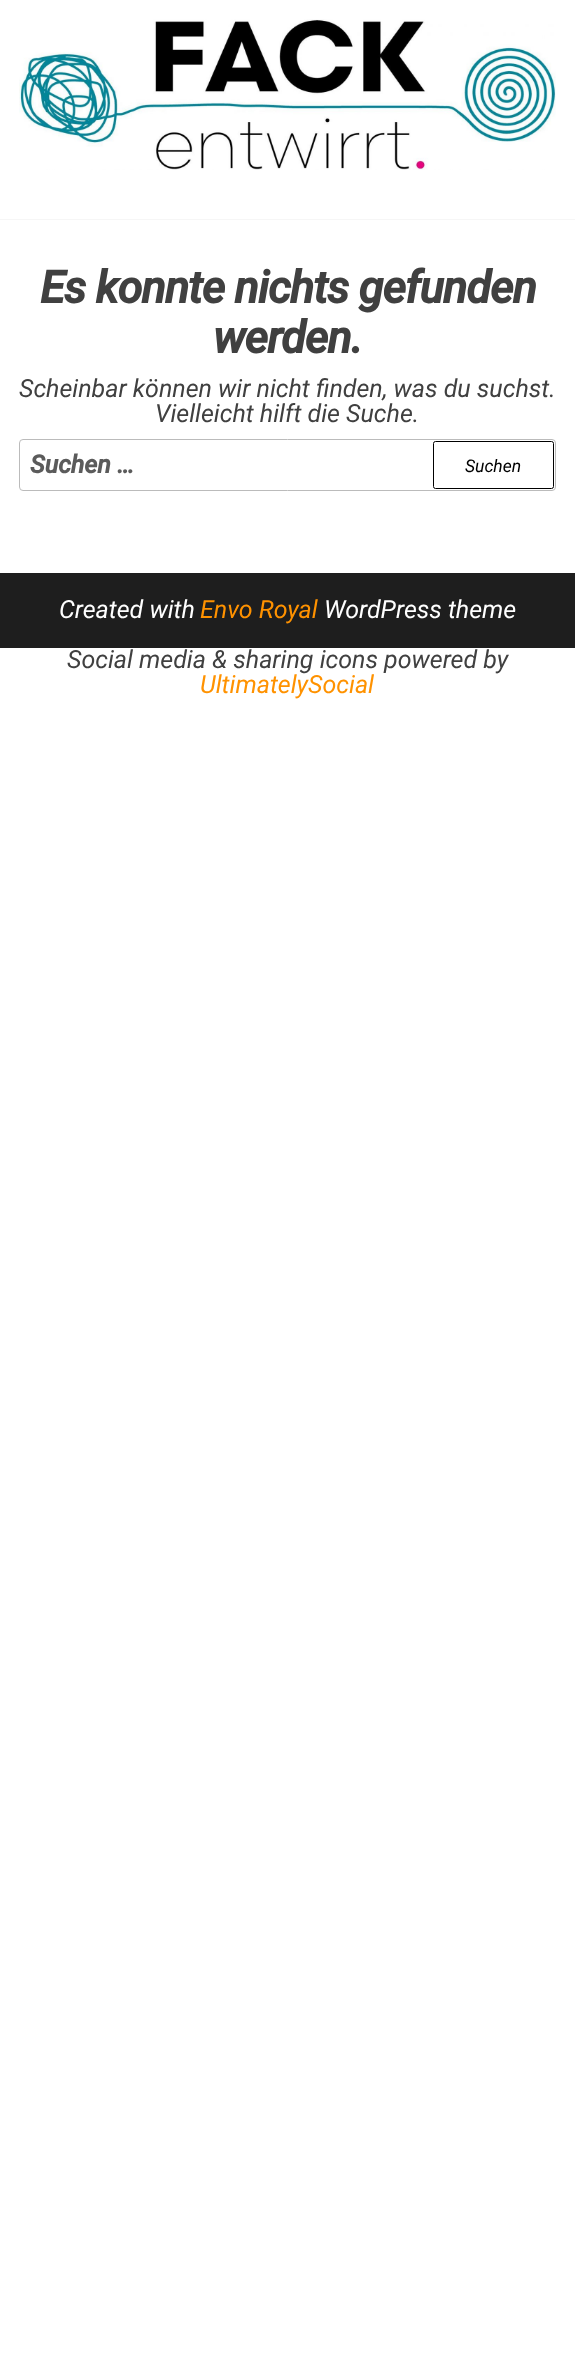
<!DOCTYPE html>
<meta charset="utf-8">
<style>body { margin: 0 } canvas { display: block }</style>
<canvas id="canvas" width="575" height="2379"></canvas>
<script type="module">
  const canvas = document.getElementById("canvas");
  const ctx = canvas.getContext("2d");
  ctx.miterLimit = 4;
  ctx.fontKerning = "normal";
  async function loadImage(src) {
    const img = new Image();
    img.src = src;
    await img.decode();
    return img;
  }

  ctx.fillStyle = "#ffffff";
  ctx.fillRect(0, 0, 575, 2379);
  ctx.fillStyle = "#f6f6f6";
  ctx.fillRect(0, 219, 575, 1);
  ctx.drawImage(await loadImage("img1.png"), 19, 19, 537, 151);
  ctx.letterSpacing = "-0.9px";
  ctx.font = "italic bold 45px Roboto";
  ctx.fillStyle = "#404040";
  ctx.fillText("Es konnte nichts gefunden", 40, 303);
  ctx.fillText("werden.", 213, 353);
  ctx.letterSpacing = "0px";
  ctx.font = "italic 25px Roboto";
  ctx.fillText("Scheinbar können wir nicht finden, was du suchst.", 19, 397);
  ctx.fillText("Vielleicht hilft die Suche.", 155, 422);
  ctx.beginPath();
  ctx.roundRect(19.5, 439.5, 536, 51, 3.5);
  ctx.strokeStyle = "#bbbbbb";
  ctx.stroke();
  ctx.font = "italic bold 25px Roboto";
  ctx.fillStyle = "#5b5b5b";
  ctx.fillText("Suchen …", 30, 473);
  ctx.beginPath();
  ctx.roundRect(433.5, 441.5, 120, 47, 2);
  ctx.strokeStyle = "#000000";
  ctx.stroke();
  ctx.font = "italic 17.5px Roboto";
  ctx.fillStyle = "#000000";
  ctx.fillText("Suchen", 465, 472);
  ctx.fillStyle = "#1e1e1e";
  ctx.fillRect(0, 573, 575, 75);
  ctx.font = "italic 25px Roboto";
  ctx.fillStyle = "#ffffff";
  ctx.fillText("Created with", 59, 618);
  ctx.fillStyle = "#ff9200";
  ctx.fillText("Envo Royal", 200, 618);
  ctx.fillStyle = "#ffffff";
  ctx.fillText("WordPress theme", 324, 618);
  ctx.fillStyle = "#404040";
  ctx.fillText("Social media & sharing icons powered by", 67, 668);
  ctx.fillStyle = "#ff9200";
  ctx.fillText("UltimatelySocial", 200, 693);
</script>
